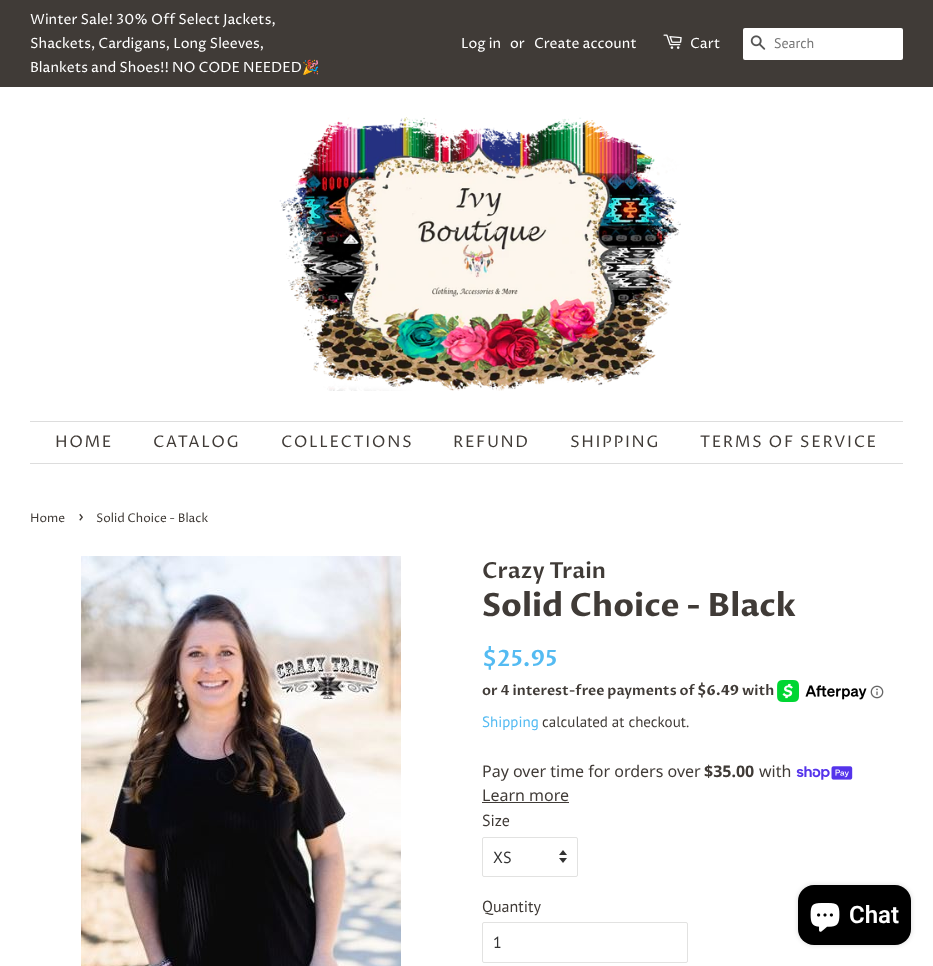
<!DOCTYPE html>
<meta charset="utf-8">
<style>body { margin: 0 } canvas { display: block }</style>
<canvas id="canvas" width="933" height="966"></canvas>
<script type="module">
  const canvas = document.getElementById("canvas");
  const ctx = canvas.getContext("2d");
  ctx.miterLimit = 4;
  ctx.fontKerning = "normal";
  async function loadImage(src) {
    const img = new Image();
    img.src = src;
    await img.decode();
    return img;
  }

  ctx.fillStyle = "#ffffff";
  ctx.fillRect(0, 0, 933, 966);
  ctx.fillStyle = "#403b37";
  ctx.fillRect(0, 0, 933, 87);
  ctx.font = "14px Proza Libre";
  ctx.fillStyle = "#ffffff";
  ctx.fillText("Winter Sale! 30% Off Select Jackets,", 30, 24);
  ctx.fillText("Shackets, Cardigans, Long Sleeves,", 30, 48);
  ctx.fillText("Blankets and Shoes!! NO CODE NEEDED", 30, 72);
  ctx.font = "14px Noto Color Emoji";
  ctx.fillText("🎉", 302, 72);
  ctx.font = "14px Proza Libre";
  ctx.fillText("Log in", 461, 48);
  ctx.fillText("or", 510, 48);
  ctx.fillText("Create account", 534, 48);
  ctx.drawImage(await loadImage("img1.png"), 663, 34, 19, 15);
  ctx.fillText("Cart", 690, 48);
  ctx.beginPath();
  ctx.roundRect(743, 28, 160, 32, 2);
  ctx.fill();
  ctx.drawImage(await loadImage("img2.png"), 750, 35, 16, 15);
  ctx.font = "14px PT Sans";
  ctx.fillStyle = "#757575";
  ctx.fillText("Search", 774, 48);
  ctx.drawImage(await loadImage("img3.png"), 279, 117, 402, 274);
  ctx.fillStyle = "#dddddd";
  ctx.fillRect(30, 421, 873, 1);
  ctx.fillRect(30, 463, 873, 1);
  ctx.letterSpacing = "1.6px";
  ctx.font = "16px Proza Libre";
  ctx.fillStyle = "#403b37";
  ctx.fillText("HOME", 55, 447);
  ctx.fillText("CATALOG", 153, 447);
  ctx.fillText("COLLECTIONS", 281, 447);
  ctx.fillText("REFUND", 453, 447);
  ctx.fillText("SHIPPING", 570, 447);
  ctx.fillText("TERMS OF SERVICE", 700, 447);
  ctx.letterSpacing = "0px";
  ctx.font = "12px Proza Libre";
  ctx.fillText("Home", 30, 522);
  ctx.font = "17px Proza Libre";
  ctx.fillText("›", 78, 522);
  ctx.font = "12px Proza Libre";
  ctx.fillText("Solid Choice - Black", 96, 522);
  ctx.drawImage(await loadImage("img4.png"), 81, 556, 320, 410);
  ctx.font = "600 22px Proza Libre";
  ctx.fillText("Crazy Train", 482, 578);
  ctx.font = "bold 32px Proza Libre";
  ctx.fillText("Solid Choice - Black", 482, 616);
  ctx.font = "600 22.5px Proza Libre";
  ctx.fillStyle = "#54bbf2";
  ctx.fillText("$25.95", 482, 666);
  ctx.font = "600 14px Proza Libre";
  ctx.fillStyle = "#403b37";
  ctx.fillText("or 4 interest-free payments of", 482, 695);
  ctx.font = "bold 14px Proza Libre";
  ctx.fillText("$6.49", 697, 695);
  ctx.font = "600 14px Proza Libre";
  ctx.fillText("with", 742, 695);
  ctx.drawImage(await loadImage("img5.png"), 777, 680, 90, 22);
  ctx.drawImage(await loadImage("img6.png"), 870, 685, 14, 14);
  ctx.font = "15px PT Sans";
  ctx.fillStyle = "#54bbf2";
  ctx.fillText("Shipping", 482, 727);
  ctx.fillStyle = "#403b37";
  ctx.fillText("calculated at checkout.", 542, 727);
  ctx.font = "16px Noto Sans";
  ctx.fillText("Pay over time for orders over", 482, 777);
  ctx.font = "bold 16px Noto Sans";
  ctx.fillText("$35.00", 704, 777);
  ctx.font = "16px Noto Sans";
  ctx.fillText("with", 759, 777);
  ctx.drawImage(await loadImage("img7.png"), 796, 766, 57, 14);
  ctx.fillText("Learn more", 482, 801);
  ctx.fillRect(482, 802, 87, 1);
  ctx.font = "16px PT Sans";
  ctx.fillText("Size", 482, 826);
  ctx.drawImage(await loadImage("img8.png"), 559, 850, 8, 13);
  ctx.beginPath();
  ctx.roundRect(482.5, 837.5, 95, 39, 1.5);
  ctx.strokeStyle = "#e2e2e1";
  ctx.stroke();
  ctx.fillStyle = "#333333";
  ctx.fillText("XS", 493, 863);
  ctx.fillStyle = "#403b37";
  ctx.fillText("Quantity", 482, 912);
  ctx.beginPath();
  ctx.roundRect(482.5, 922.5, 205, 40, 1.5);
  ctx.stroke();
  ctx.fillStyle = "#333333";
  ctx.fillText("1", 493, 948);
  ctx.fillStyle = "rgba(0, 0, 0, 0.15)";
  ctx.filter = "blur(2.5px)";
  ctx.beginPath();
  ctx.roundRect(798, 885, 113, 60, 16);
  ctx.fill();
  ctx.filter = "none";
  ctx.fillStyle = "#000000";
  ctx.beginPath();
  ctx.roundRect(798, 885, 113, 60, 16);
  ctx.fill();
  ctx.drawImage(await loadImage("img9.png"), 810, 903, 30, 29);
  ctx.font = "600 24px Roboto";
  ctx.fillStyle = "#ffffff";
  ctx.fillText("Chat", 849, 923);
</script>
